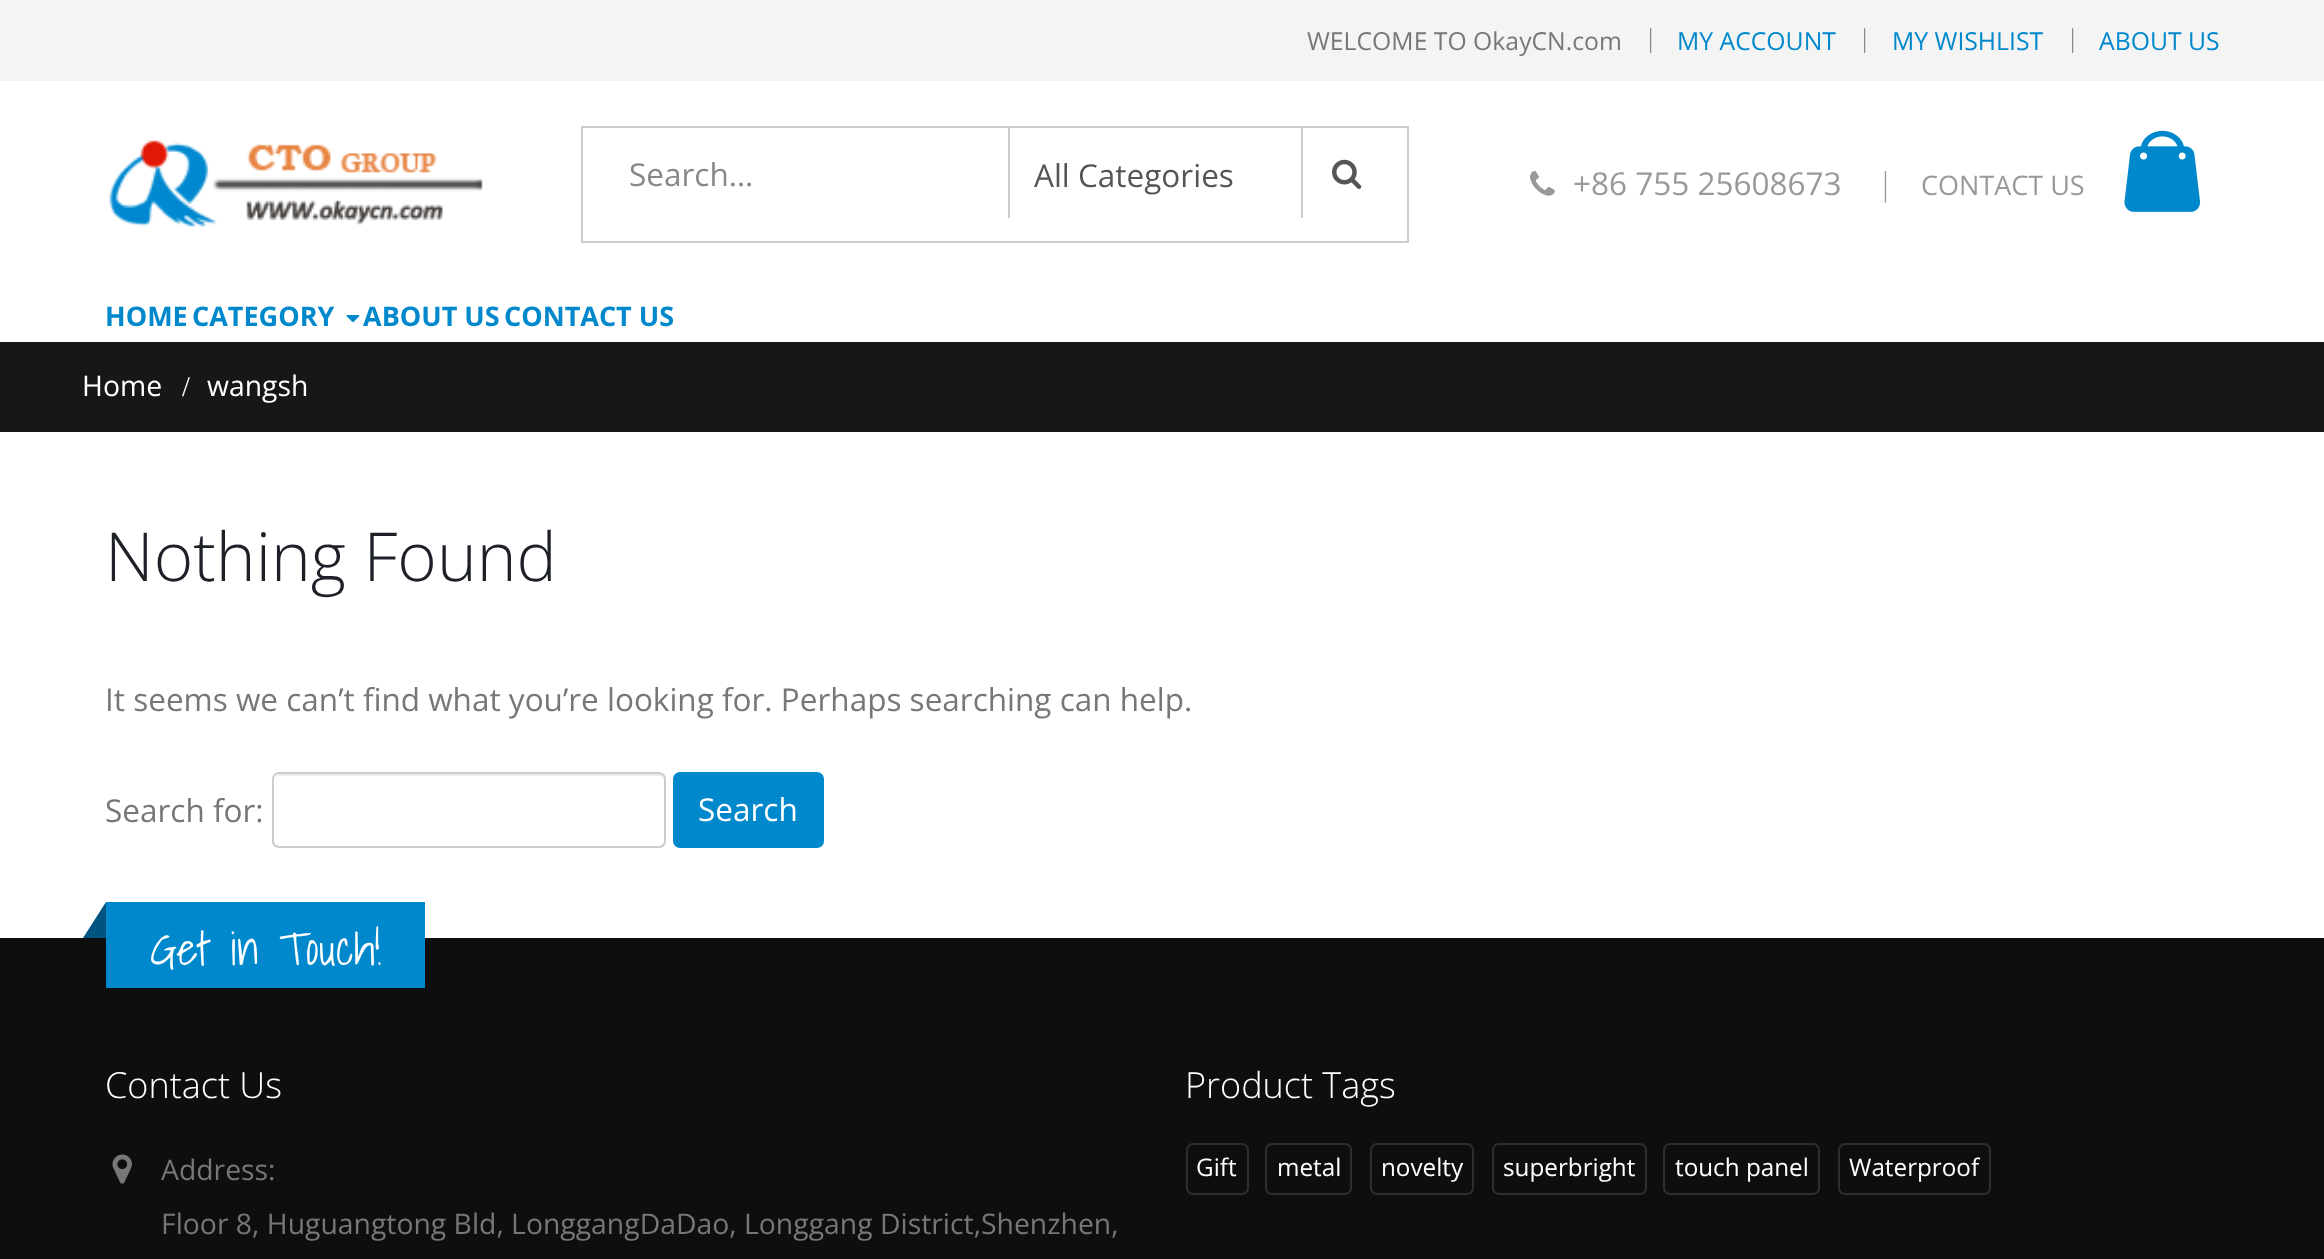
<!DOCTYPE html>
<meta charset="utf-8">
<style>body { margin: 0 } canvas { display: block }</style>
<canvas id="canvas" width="2324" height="1259"></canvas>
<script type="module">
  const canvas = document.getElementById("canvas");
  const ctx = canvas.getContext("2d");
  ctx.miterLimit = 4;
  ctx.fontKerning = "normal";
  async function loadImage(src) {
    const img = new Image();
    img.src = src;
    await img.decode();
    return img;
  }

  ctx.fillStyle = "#ffffff";
  ctx.fillRect(0, 0, 2324, 1259);
  ctx.fillStyle = "#f4f4f4";
  ctx.fillRect(0, 0, 2324, 81);
  ctx.font = "24.75px Open Sans";
  ctx.fillStyle = "#777777";
  ctx.fillText("WELCOME TO OkayCN.com", 1307, 50);
  ctx.font = "300 24.75px Open Sans";
  ctx.fillText("|", 1644, 47);
  ctx.font = "24.75px Open Sans";
  ctx.fillStyle = "#0088cc";
  ctx.fillText("MY ACCOUNT", 1677, 50);
  ctx.font = "300 24.75px Open Sans";
  ctx.fillStyle = "#777777";
  ctx.fillText("|", 1858, 47);
  ctx.font = "24.75px Open Sans";
  ctx.fillStyle = "#0088cc";
  ctx.fillText("MY WISHLIST", 1892, 50);
  ctx.font = "300 24.75px Open Sans";
  ctx.fillStyle = "#777777";
  ctx.fillText("|", 2066, 47);
  ctx.font = "24.75px Open Sans";
  ctx.fillStyle = "#0088cc";
  ctx.fillText("ABOUT US", 2099, 50);
  ctx.drawImage(await loadImage("img1.png"), 109, 140, 374, 87);
  ctx.strokeStyle = "#cccccc";
  ctx.lineWidth = 2;
  ctx.strokeRect(582, 127, 826, 115);
  ctx.fillStyle = "#cccccc";
  ctx.fillRect(1008, 128, 2, 90);
  ctx.font = "31.5px Open Sans";
  ctx.fillStyle = "#888888";
  ctx.fillText("Search…", 629, 186);
  ctx.fillStyle = "#cccccc";
  ctx.fillRect(1301, 128, 2, 90);
  ctx.fillStyle = "#555555";
  ctx.fillText("All Categories", 1034, 187);
  ctx.drawImage(await loadImage("img2.png"), 1332, 159, 30, 30);
  ctx.drawImage(await loadImage("img3.png"), 1530, 171, 25, 25);
  ctx.fillStyle = "#999999";
  ctx.fillText("+86 755 25608673", 1573, 195);
  ctx.font = "300 31.5px Open Sans";
  ctx.fillText("|", 1877, 195);
  ctx.font = "27px Open Sans";
  ctx.fillText("CONTACT US", 1921, 195);
  ctx.drawImage(await loadImage("img4.png"), 2124, 130, 77, 82);
  ctx.font = "bold 27px Open Sans";
  ctx.fillStyle = "#0088cc";
  ctx.fillText("HOME", 105, 326);
  ctx.fillText("CATEGORY", 192, 326);
  ctx.drawImage(await loadImage("img5.png"), 346, 315, 14, 8);
  ctx.fillText("ABOUT US", 363, 326);
  ctx.fillText("CONTACT US", 504, 326);
  ctx.fillStyle = "#171717";
  ctx.fillRect(0, 342, 2324, 90);
  ctx.font = "28.35px Open Sans";
  ctx.fillStyle = "#ffffff";
  ctx.fillText("Home", 82, 396);
  ctx.font = "28.35px Liberation Serif";
  ctx.fillText("/", 182, 396);
  ctx.font = "28.35px Open Sans";
  ctx.fillText("wangsh", 207, 396);
  ctx.font = "300 67.5px Open Sans";
  ctx.fillStyle = "#1d2127";
  ctx.fillText("Nothing Found", 105, 581);
  ctx.font = "31.5px Open Sans";
  ctx.fillStyle = "#777777";
  ctx.fillText("It seems we can’t find what you’re looking for. Perhaps searching can help.", 105, 711);
  ctx.fillText("Search for:", 105, 822);
  ctx.fillStyle = "#ececec";
  ctx.beginPath();
  ctx.moveTo(279, 776);
  ctx.lineTo(659, 776);
  ctx.bezierCurveTo(662, 776, 664, 778, 664, 781);
  ctx.lineTo(664, 779);
  ctx.bezierCurveTo(664, 776, 662, 774, 659, 774);
  ctx.lineTo(280, 774);
  ctx.bezierCurveTo(278, 774, 276, 776, 275, 778);
  ctx.bezierCurveTo(276, 777, 278, 776, 279, 776);
  ctx.closePath();
  ctx.fill();
  ctx.beginPath();
  ctx.roundRect(273, 773, 392, 74, 6);
  ctx.stroke();
  ctx.fillStyle = "#0088cc";
  ctx.beginPath();
  ctx.roundRect(674, 773, 149, 74, 6);
  ctx.fill();
  ctx.strokeStyle = "#0088cc";
  ctx.stroke();
  ctx.fillStyle = "#ffffff";
  ctx.fillText("Search", 698, 821);
  ctx.fillStyle = "#0e0e0e";
  ctx.fillRect(0, 938, 2324, 321);
  ctx.fillStyle = "#0088cc";
  ctx.fillRect(106, 902, 319, 86);
  ctx.fillStyle = "#005580";
  ctx.beginPath();
  ctx.moveTo(106, 902);
  ctx.lineTo(106, 938);
  ctx.lineTo(83, 938);
  ctx.closePath();
  ctx.fill();
  ctx.font = "300 45.5px Shadows Into Light";
  ctx.fillStyle = "#ffffff";
  ctx.fillText("Get in Touch!", 150, 965);
  ctx.font = "300 36px Open Sans";
  ctx.fillText("Contact Us", 105, 1098);
  ctx.drawImage(await loadImage("img6.png"), 112, 1154, 20, 30);
  ctx.font = "28.35px Open Sans";
  ctx.fillStyle = "#777777";
  ctx.fillText("Address:", 161, 1180);
  ctx.fillText("Floor 8, Huguangtong Bld, LonggangDaDao, Longgang District,Shenzhen,", 161, 1234);
  ctx.font = "300 36px Open Sans";
  ctx.fillStyle = "#ffffff";
  ctx.fillText("Product Tags", 1185, 1098);
  ctx.beginPath();
  ctx.roundRect(1187, 1144, 61, 50, 6);
  ctx.strokeStyle = "#2e2e2e";
  ctx.stroke();
  ctx.font = "24.25px Open Sans";
  ctx.fillText("Gift", 1196, 1176);
  ctx.beginPath();
  ctx.roundRect(1266, 1144, 85, 50, 6);
  ctx.stroke();
  ctx.fillText("metal", 1277, 1176);
  ctx.beginPath();
  ctx.roundRect(1371, 1144, 102, 50, 6);
  ctx.stroke();
  ctx.fillText("novelty", 1381, 1176);
  ctx.beginPath();
  ctx.roundRect(1493, 1144, 153, 50, 6);
  ctx.stroke();
  ctx.fillText("superbright", 1503, 1176);
  ctx.beginPath();
  ctx.roundRect(1664, 1144, 155, 50, 6);
  ctx.stroke();
  ctx.fillText("touch panel", 1675, 1176);
  ctx.beginPath();
  ctx.roundRect(1839, 1144, 151, 50, 6);
  ctx.stroke();
  ctx.fillText("Waterproof", 1849, 1176);
</script>
